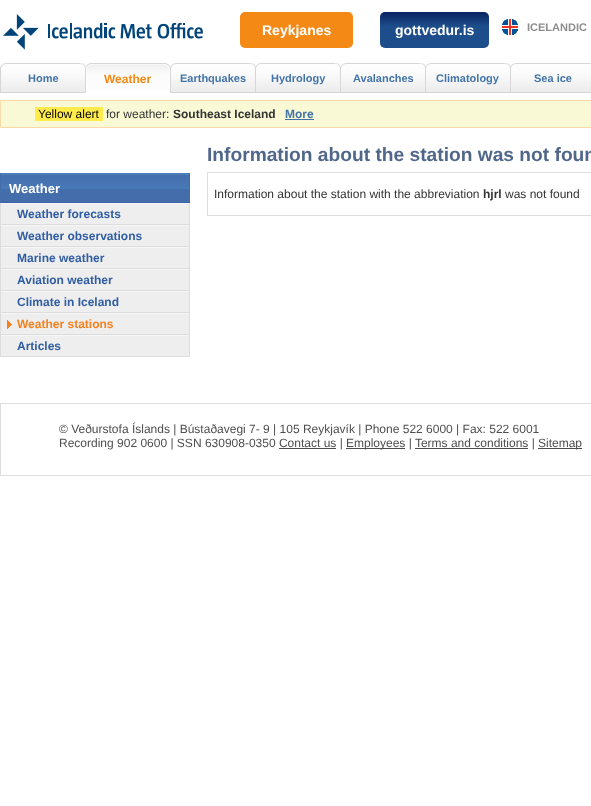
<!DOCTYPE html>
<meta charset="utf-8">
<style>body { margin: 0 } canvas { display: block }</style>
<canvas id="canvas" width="591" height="806"></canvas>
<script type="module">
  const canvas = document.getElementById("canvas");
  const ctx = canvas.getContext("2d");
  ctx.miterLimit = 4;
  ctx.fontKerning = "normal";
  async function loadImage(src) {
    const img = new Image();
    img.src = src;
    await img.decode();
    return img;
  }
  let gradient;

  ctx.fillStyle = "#ffffff";
  ctx.fillRect(0, 0, 591, 806);
  ctx.drawImage(await loadImage("img1.png"), 0, 92, 591, 1);
  ctx.fillStyle = "#f48916";
  ctx.beginPath();
  ctx.roundRect(240, 12, 113, 36, 5);
  ctx.fill();
  ctx.font = "bold 14px Liberation Sans";
  ctx.fillStyle = "#ffffff";
  ctx.fillText("Reykjanes", 262, 35);
  gradient = ctx.createLinearGradient(435, 48, 435, 12);
  gradient.addColorStop(0.6, "#1e4d8b");
  gradient.addColorStop(1, "#072460");
  ctx.fillStyle = gradient;
  ctx.beginPath();
  ctx.roundRect(380, 12, 109, 36, 5);
  ctx.fill();
  ctx.fillStyle = "#ffffff";
  ctx.fillText("gottvedur.is", 395, 35);
  ctx.drawImage(await loadImage("img2.png"), 502, 19, 16, 16);
  ctx.font = "bold 11px Liberation Sans";
  ctx.fillStyle = "#8e8e8e";
  ctx.fillText("ICELANDIC", 527, 31);
  ctx.strokeStyle = "#dddddd";
  ctx.strokeRect(0.5, 403.5, 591, 72);
  ctx.font = "12px Liberation Sans";
  ctx.fillStyle = "#4e4e4e";
  ctx.fillText("© Veðurstofa Íslands | Bústaðavegi 7- 9 | 105 Reykjavík | Phone 522 6000 | Fax: 522 6001", 59, 433);
  ctx.fillText("Recording 902 0600 | SSN 630908-0350 Contact us |", 59, 447);
  ctx.fillRect(346, 448, 59, 1);
  ctx.fillText("Employees | Terms and conditions |", 346, 447);
  ctx.fillRect(538, 448, 44, 1);
  ctx.fillText("Sitemap", 538, 447);
  ctx.fillRect(279, 448, 57, 1);
  ctx.fillRect(415, 448, 113, 1);
  ctx.drawImage(await loadImage("img3.png"), 0, 63, 85, 29);
  ctx.drawImage(await loadImage("img4.png"), 80, 63, 5, 6);
  ctx.font = "bold 11px Liberation Sans";
  ctx.fillStyle = "#4374a8";
  ctx.fillText("Home", 28, 82);
  ctx.drawImage(await loadImage("img5.png"), 85, 63, 85, 30);
  ctx.drawImage(await loadImage("img6.png"), 166, 63, 5, 30);
  ctx.font = "bold 12px Liberation Sans";
  ctx.fillStyle = "#f38915";
  ctx.fillText("Weather", 104, 83);
  ctx.drawImage(await loadImage("img7.png"), 171, 63, 84, 29);
  ctx.drawImage(await loadImage("img4.png"), 250, 63, 5, 6);
  ctx.font = "bold 11px Liberation Sans";
  ctx.fillStyle = "#4374a8";
  ctx.fillText("Earthquakes", 180, 82);
  ctx.drawImage(await loadImage("img3.png"), 255, 63, 85, 29);
  ctx.drawImage(await loadImage("img4.png"), 335, 63, 5, 6);
  ctx.fillText("Hydrology", 271, 82);
  ctx.drawImage(await loadImage("img3.png"), 340, 63, 85, 29);
  ctx.drawImage(await loadImage("img4.png"), 420, 63, 5, 6);
  ctx.fillText("Avalanches", 353, 82);
  ctx.drawImage(await loadImage("img3.png"), 425, 63, 85, 29);
  ctx.drawImage(await loadImage("img4.png"), 505, 63, 5, 6);
  ctx.fillText("Climatology", 436, 82);
  ctx.drawImage(await loadImage("img8.png"), 510, 63, 81, 29);
  ctx.fillStyle = "#e9e9e9";
  ctx.fillRect(590, 63, 1, 1);
  ctx.fillStyle = "#4374a8";
  ctx.fillText("Sea ice", 534, 82);
  ctx.fillStyle = "#eeeeee";
  ctx.fillRect(1, 204, 188, 152);
  ctx.fillStyle = "#dddddd";
  ctx.fillRect(189, 203, 1, 154);
  ctx.fillRect(0, 203, 1, 154);
  ctx.fillStyle = "#446dac";
  ctx.fillRect(1, 189, 188, 13);
  ctx.drawImage(await loadImage("img9.png"), 1, 173, 188, 16);
  ctx.fillRect(189, 173, 1, 30);
  ctx.fillStyle = "#3d62a4";
  ctx.fillRect(0, 202, 190, 1);
  ctx.fillStyle = "#446dac";
  ctx.fillRect(0, 173, 1, 30);
  ctx.font = "bold 13px Liberation Sans";
  ctx.fillStyle = "#ffffff";
  ctx.fillText("Weather", 9, 193);
  ctx.fillStyle = "#f6f6f6";
  ctx.fillRect(1, 203, 188, 1);
  ctx.fillStyle = "#dddddd";
  ctx.fillRect(1, 224, 188, 1);
  ctx.font = "bold 12px Liberation Sans";
  ctx.fillStyle = "#305da3";
  ctx.fillText("Weather forecasts", 17, 218);
  ctx.fillStyle = "#f6f6f6";
  ctx.fillRect(1, 225, 188, 1);
  ctx.fillStyle = "#dddddd";
  ctx.fillRect(1, 246, 188, 1);
  ctx.fillStyle = "#305da3";
  ctx.fillText("Weather observations", 17, 240);
  ctx.fillStyle = "#f6f6f6";
  ctx.fillRect(1, 247, 188, 1);
  ctx.fillStyle = "#dddddd";
  ctx.fillRect(1, 268, 188, 1);
  ctx.fillStyle = "#305da3";
  ctx.fillText("Marine weather", 17, 262);
  ctx.fillStyle = "#f6f6f6";
  ctx.fillRect(1, 269, 188, 1);
  ctx.fillStyle = "#dddddd";
  ctx.fillRect(1, 290, 188, 1);
  ctx.fillStyle = "#305da3";
  ctx.fillText("Aviation weather", 17, 284);
  ctx.fillStyle = "#f6f6f6";
  ctx.fillRect(1, 291, 188, 1);
  ctx.fillStyle = "#dddddd";
  ctx.fillRect(1, 312, 188, 1);
  ctx.fillStyle = "#305da3";
  ctx.fillText("Climate in Iceland", 17, 306);
  ctx.drawImage(await loadImage("img10.png"), 7, 320, 5, 9);
  ctx.fillStyle = "#f6f6f6";
  ctx.fillRect(1, 313, 188, 1);
  ctx.fillStyle = "#dddddd";
  ctx.fillRect(1, 334, 188, 1);
  ctx.fillStyle = "#f5821f";
  ctx.fillText("Weather stations", 17, 328);
  ctx.fillStyle = "#f6f6f6";
  ctx.fillRect(1, 335, 188, 1);
  ctx.fillStyle = "#dddddd";
  ctx.fillRect(1, 356, 188, 1);
  ctx.fillStyle = "#305da3";
  ctx.fillText("Articles", 17, 350);
  ctx.drawImage(await loadImage("img11.png"), 3, 14, 200, 36);
  ctx.fillStyle = "#f9f9d5";
  ctx.beginPath();
  ctx.rect(0.5, 100.5, 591, 27);
  ctx.fill();
  ctx.strokeStyle = "#fbd9a6";
  ctx.stroke();
  ctx.fillStyle = "#ffeb4c";
  ctx.fillRect(35, 107, 68, 14);
  ctx.font = "12px Liberation Sans";
  ctx.fillStyle = "#000000";
  ctx.fillText("Yellow alert", 38, 118);
  ctx.fillStyle = "#333333";
  ctx.fillText("for weather:", 106, 118);
  ctx.font = "bold 12px Liberation Sans";
  ctx.fillText("Southeast Iceland", 173, 118);
  ctx.fillStyle = "#4374a8";
  ctx.fillText("More", 285, 118);
  ctx.fillRect(285, 119, 29, 1);
  ctx.font = "bold 19.2px Liberation Sans";
  ctx.fillStyle = "#51678a";
  ctx.fillText("Information about the station was not foun", 207, 161);
  ctx.strokeStyle = "#dddddd";
  ctx.strokeRect(207.5, 172.5, 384, 43);
  ctx.font = "12px Liberation Sans";
  ctx.fillStyle = "#333333";
  ctx.fillText("Information about the station with the abbreviation", 214, 198);
  ctx.font = "bold 12px Liberation Sans";
  ctx.fillText("hjrl", 483, 198);
  ctx.font = "12px Liberation Sans";
  ctx.fillText("was not found", 505, 198);
</script>
